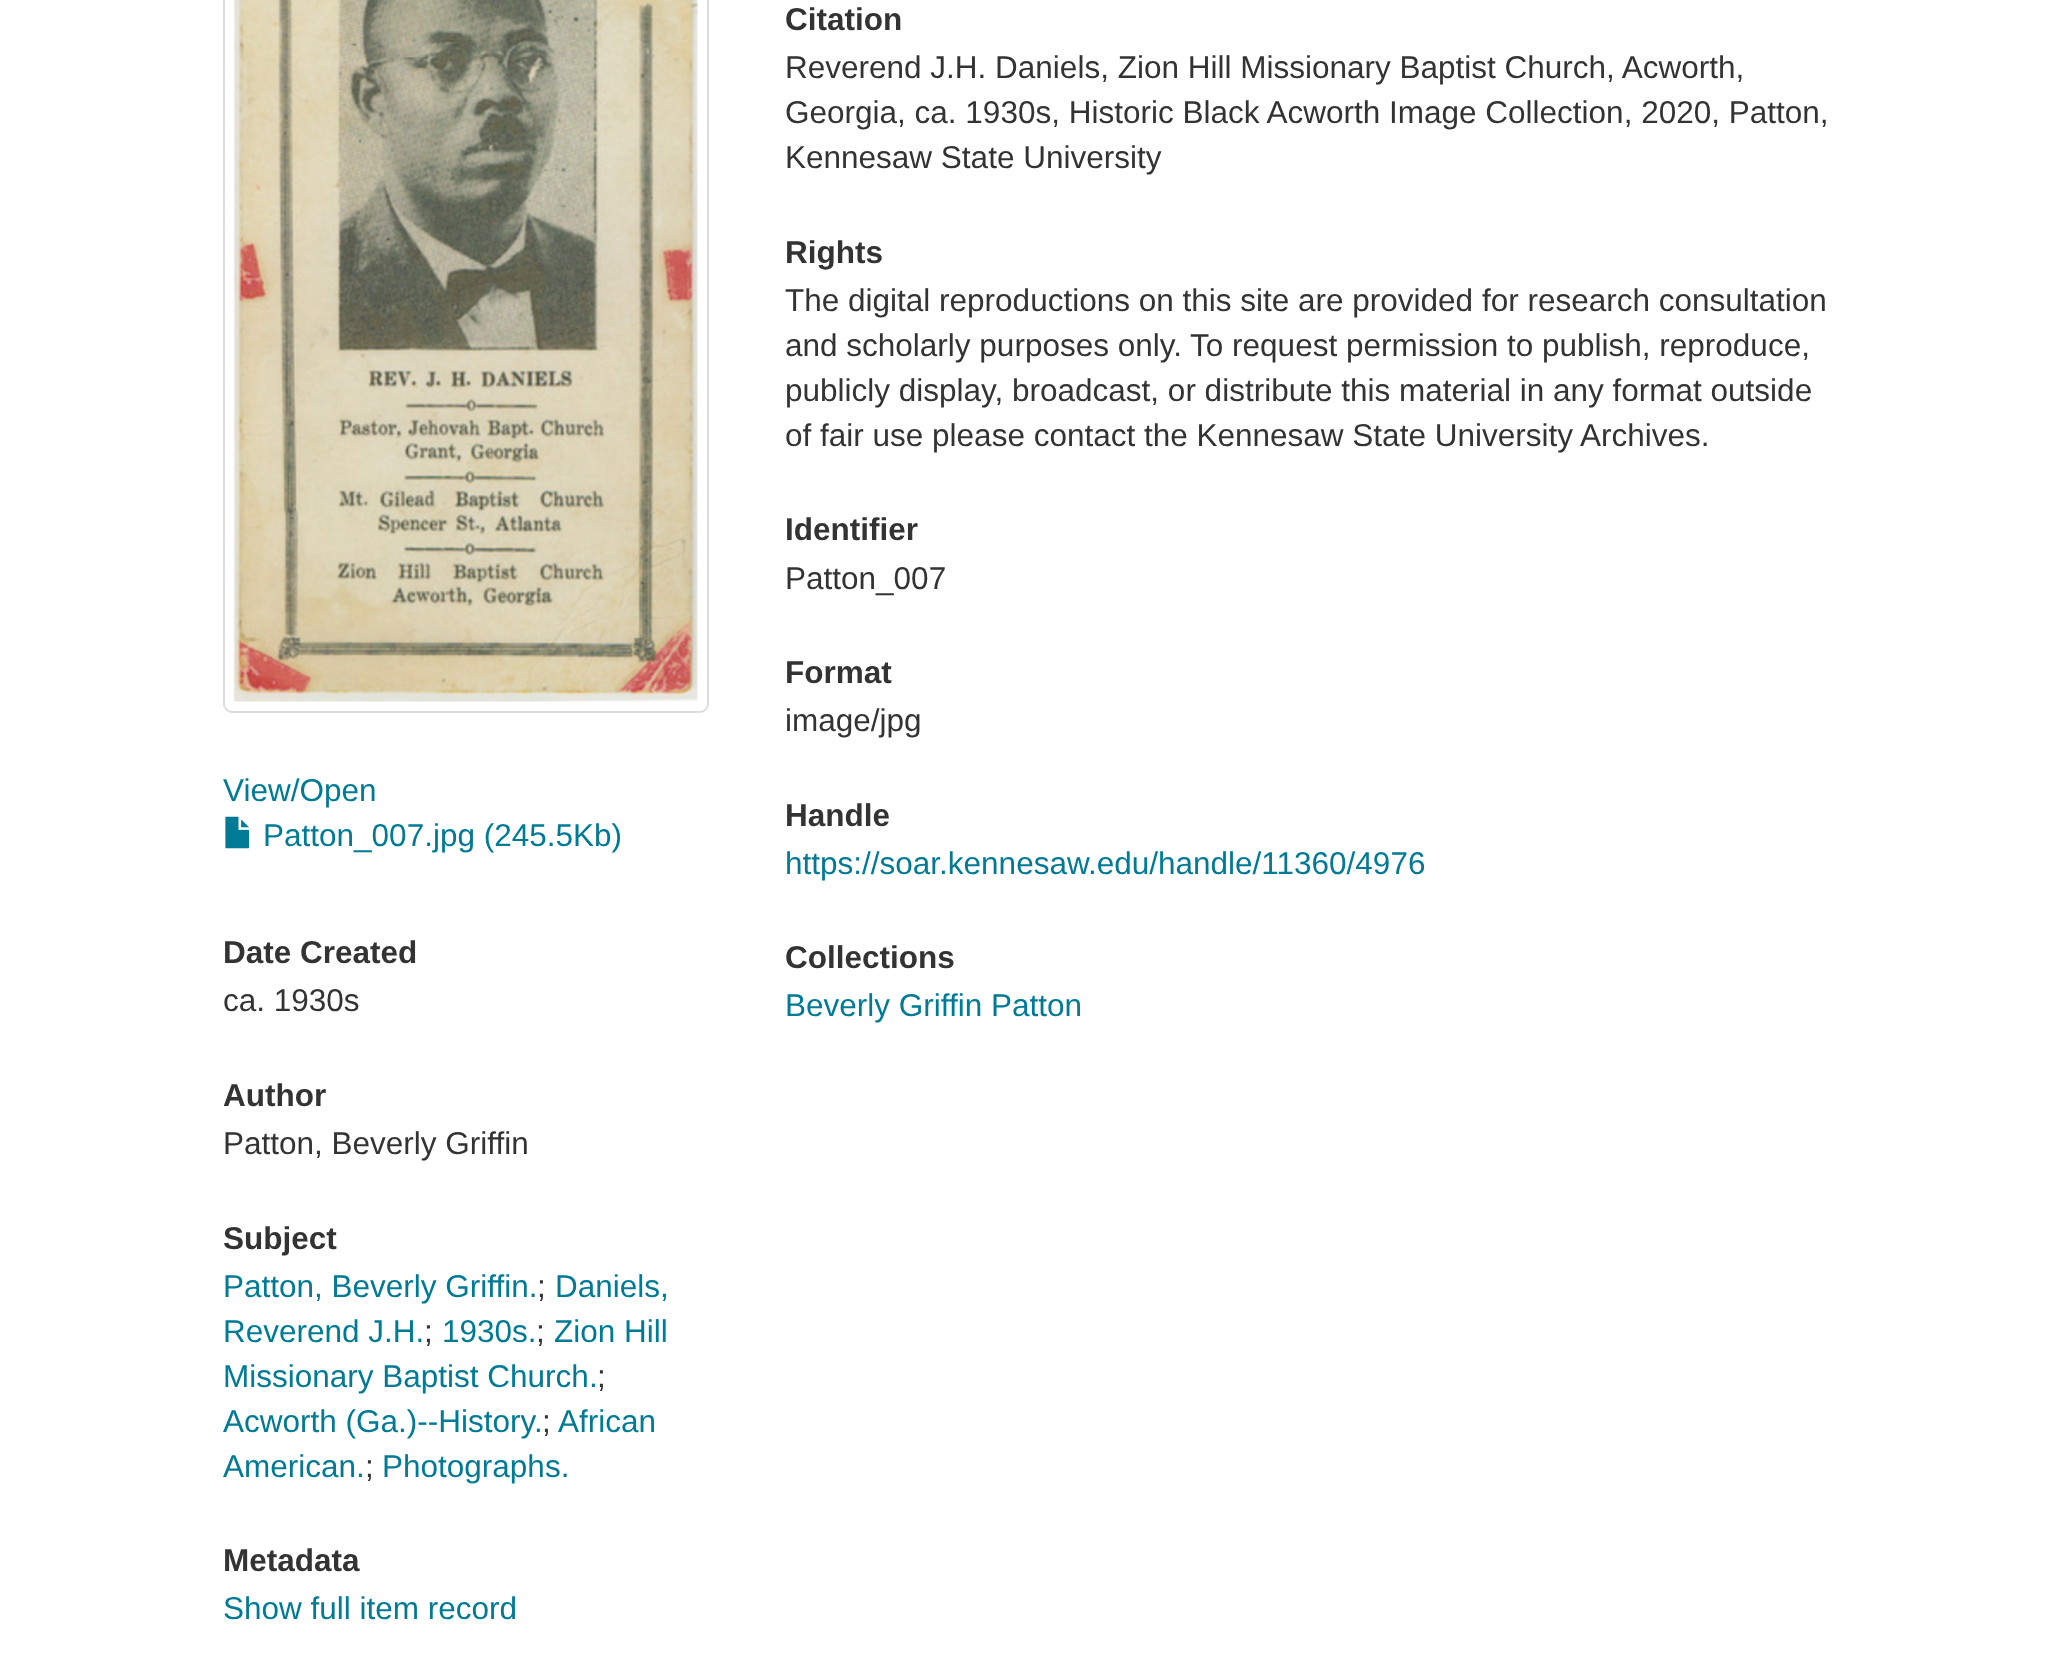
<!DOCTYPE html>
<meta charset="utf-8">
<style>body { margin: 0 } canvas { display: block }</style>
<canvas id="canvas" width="2065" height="1664"></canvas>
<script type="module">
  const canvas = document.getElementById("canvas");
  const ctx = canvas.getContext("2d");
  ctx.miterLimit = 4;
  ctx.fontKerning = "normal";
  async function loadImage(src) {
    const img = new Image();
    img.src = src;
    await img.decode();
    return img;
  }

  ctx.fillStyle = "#ffffff";
  ctx.fillRect(0, 0, 2065, 1664);
  ctx.font = "bold 31.5px Liberation Sans";
  ctx.fillStyle = "#333333";
  ctx.fillText("Citation", 785, 30);
  ctx.font = "31.5px Liberation Sans";
  ctx.fillText("Reverend J.H. Daniels, Zion Hill Missionary Baptist Church, Acworth,", 785, 78);
  ctx.fillText("Georgia, ca. 1930s, Historic Black Acworth Image Collection, 2020, Patton,", 785, 123);
  ctx.fillText("Kennesaw State University", 785, 168);
  ctx.font = "bold 31.5px Liberation Sans";
  ctx.fillText("Rights", 785, 263);
  ctx.font = "31.5px Liberation Sans";
  ctx.fillText("The digital reproductions on this site are provided for research consultation", 785, 311);
  ctx.fillText("and scholarly purposes only. To request permission to publish, reproduce,", 785, 356);
  ctx.fillText("publicly display, broadcast, or distribute this material in any format outside", 785, 401);
  ctx.fillText("of fair use please contact the Kennesaw State University Archives.", 785, 446);
  ctx.font = "bold 31.5px Liberation Sans";
  ctx.fillText("Identifier", 785, 540);
  ctx.font = "31.5px Liberation Sans";
  ctx.fillText("Patton_007", 785, 589);
  ctx.font = "bold 31.5px Liberation Sans";
  ctx.fillText("Format", 785, 683);
  ctx.font = "31.5px Liberation Sans";
  ctx.fillText("image/jpg", 785, 731);
  ctx.font = "bold 31.5px Liberation Sans";
  ctx.fillText("Handle", 785, 826);
  ctx.font = "31.5px Liberation Sans";
  ctx.fillStyle = "#007a95";
  ctx.fillText("https://soar.kennesaw.edu/handle/11360/4976", 785, 874);
  ctx.font = "bold 31.5px Liberation Sans";
  ctx.fillStyle = "#333333";
  ctx.fillText("Collections", 785, 968);
  ctx.font = "31.5px Liberation Sans";
  ctx.fillStyle = "#007a95";
  ctx.fillText("Beverly Griffin Patton", 785, 1016);
  ctx.beginPath();
  ctx.roundRect(224, -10, 484, 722, 8);
  ctx.strokeStyle = "#dddddd";
  ctx.lineWidth = 2;
  ctx.stroke();
  ctx.drawImage(await loadImage("img1.png"), 233, 0, 465, 702);
  ctx.fillText("View/Open", 223, 801);
  ctx.drawImage(await loadImage("img2.png"), 225, 816, 24, 33);
  ctx.fillText("Patton_007.jpg (245.5Kb)", 263, 846);
  ctx.font = "bold 31.5px Liberation Sans";
  ctx.fillStyle = "#333333";
  ctx.fillText("Date Created", 223, 963);
  ctx.font = "31.5px Liberation Sans";
  ctx.fillText("ca. 1930s", 223, 1011);
  ctx.font = "bold 31.5px Liberation Sans";
  ctx.fillText("Author", 223, 1106);
  ctx.font = "31.5px Liberation Sans";
  ctx.fillText("Patton, Beverly Griffin", 223, 1154);
  ctx.font = "bold 31.5px Liberation Sans";
  ctx.fillText("Subject", 223, 1249);
  ctx.font = "31.5px Liberation Sans";
  ctx.fillStyle = "#007a95";
  ctx.fillText("Patton, Beverly Griffin.", 223, 1297);
  ctx.fillStyle = "#333333";
  ctx.fillText(";", 537, 1297);
  ctx.fillStyle = "#007a95";
  ctx.fillText("Daniels,", 555, 1297);
  ctx.fillText("Reverend J.H.", 223, 1342);
  ctx.fillStyle = "#333333";
  ctx.fillText(";", 424, 1342);
  ctx.fillStyle = "#007a95";
  ctx.fillText("1930s.", 442, 1342);
  ctx.fillStyle = "#333333";
  ctx.fillText(";", 536, 1342);
  ctx.fillStyle = "#007a95";
  ctx.fillText("Zion Hill", 554, 1342);
  ctx.fillText("Missionary Baptist Church.", 223, 1387);
  ctx.fillStyle = "#333333";
  ctx.fillText(";", 597, 1387);
  ctx.fillStyle = "#007a95";
  ctx.fillText("Acworth (Ga.)--History.", 223, 1432);
  ctx.fillStyle = "#333333";
  ctx.fillText(";", 542, 1432);
  ctx.fillStyle = "#007a95";
  ctx.fillText("African", 558, 1432);
  ctx.fillText("American.", 223, 1477);
  ctx.fillStyle = "#333333";
  ctx.fillText(";", 365, 1477);
  ctx.fillStyle = "#007a95";
  ctx.fillText("Photographs.", 382, 1477);
  ctx.font = "bold 31.5px Liberation Sans";
  ctx.fillStyle = "#333333";
  ctx.fillText("Metadata", 223, 1571);
  ctx.font = "31.5px Liberation Sans";
  ctx.fillStyle = "#007a95";
  ctx.fillText("Show full item record", 223, 1619);
</script>
